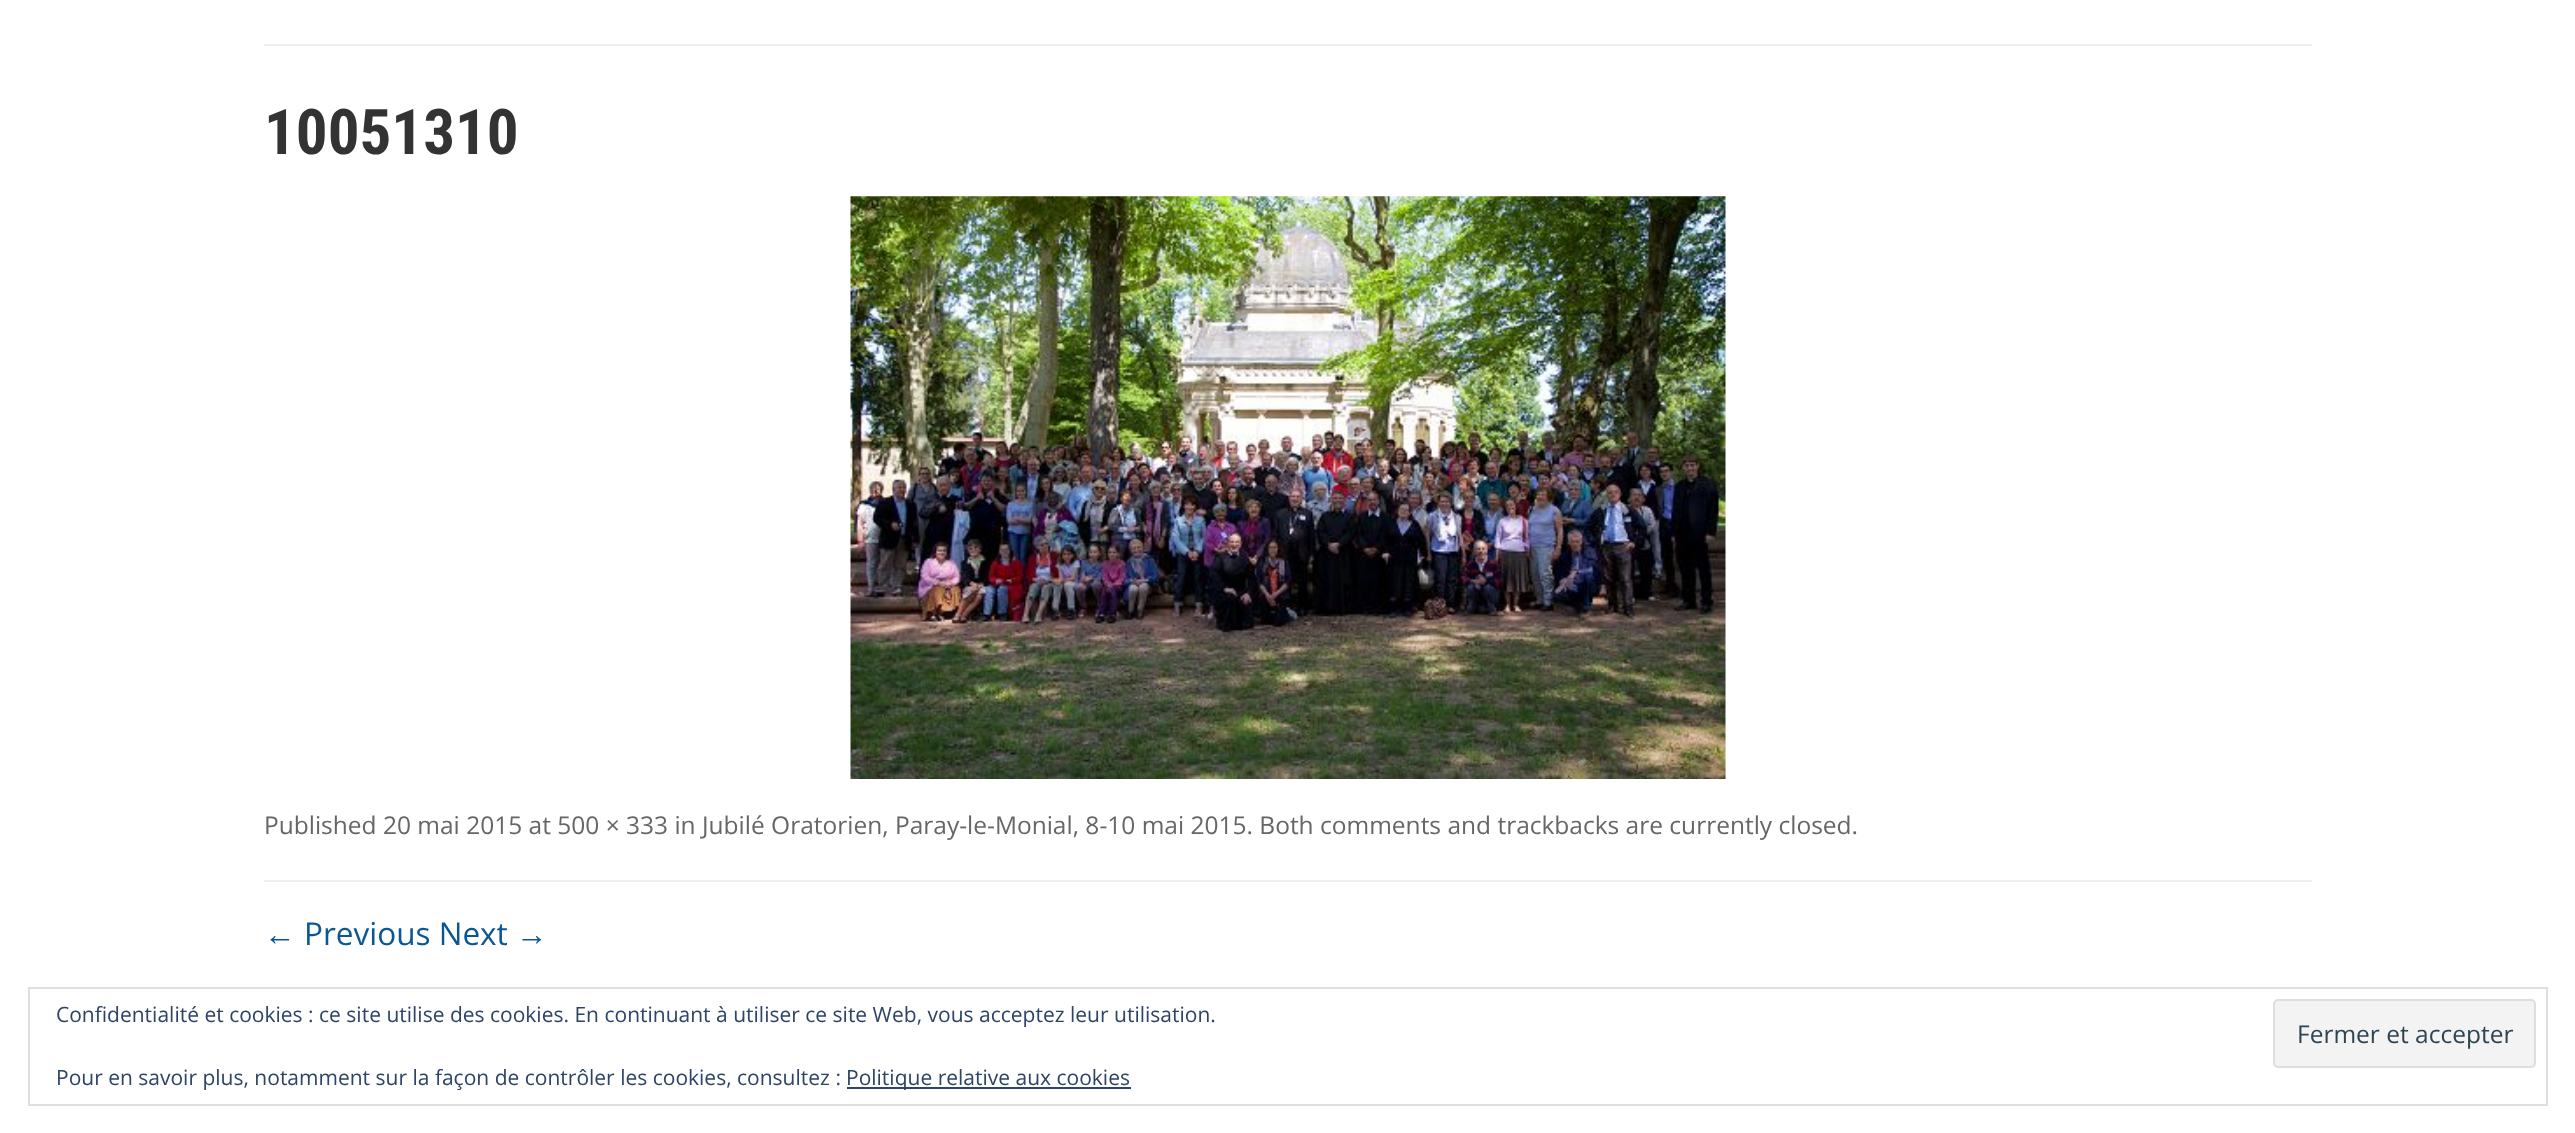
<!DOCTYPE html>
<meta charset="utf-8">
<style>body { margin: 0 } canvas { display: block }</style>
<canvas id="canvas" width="2575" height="1133"></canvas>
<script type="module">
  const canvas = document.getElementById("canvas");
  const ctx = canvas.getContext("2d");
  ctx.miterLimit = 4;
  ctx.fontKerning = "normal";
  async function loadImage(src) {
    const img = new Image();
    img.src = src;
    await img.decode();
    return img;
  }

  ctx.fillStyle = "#ffffff";
  ctx.fillRect(0, 0, 2575, 1133);
  ctx.fillStyle = "#eeeeee";
  ctx.fillRect(264, 44, 2048, 2);
  ctx.font = "bold 63px Roboto Condensed";
  ctx.fillStyle = "#333333";
  ctx.fillText("10051310", 264, 154);
  ctx.drawImage(await loadImage("img1.png"), 850, 196, 876, 583);
  ctx.fillStyle = "#eeeeee";
  ctx.fillRect(264, 880, 2048, 2);
  ctx.font = "24.5px Open Sans";
  ctx.fillStyle = "#666666";
  ctx.fillText("Published 20 mai 2015 at 500 × 333 in Jubilé Oratorien, Paray-le-Monial, 8-10 mai 2015. Both comments and trackbacks are currently closed.", 264, 834);
  ctx.font = "31.5px Liberation Sans";
  ctx.fillStyle = "#0a5794";
  ctx.fillText("←", 264, 945);
  ctx.font = "31.5px Open Sans";
  ctx.fillText("Previous Next", 304, 945);
  ctx.font = "31.5px Liberation Sans";
  ctx.fillText("→", 516, 945);
  ctx.strokeStyle = "#dedede";
  ctx.lineWidth = 2;
  ctx.strokeRect(29, 988, 2518, 117);
  ctx.font = "21px Open Sans";
  ctx.fillStyle = "#2e4467";
  ctx.fillText("Confidentialité et cookies : ce site utilise des cookies. En continuant à utiliser ce site Web, vous acceptez leur utilisation.", 56, 1022);
  ctx.fillStyle = "#f3f3f3";
  ctx.beginPath();
  ctx.roundRect(2274, 1000, 261, 67, 4);
  ctx.fill();
  ctx.stroke();
  ctx.font = "24.5px Open Sans";
  ctx.fillStyle = "#2e4453";
  ctx.fillText("Fermer et accepter", 2297, 1043);
  ctx.font = "21px Open Sans";
  ctx.fillStyle = "#2e4467";
  ctx.fillText("Pour en savoir plus, notamment sur la façon de contrôler les cookies, consultez :", 56, 1085);
  ctx.fillRect(847, 1087, 284, 2);
  ctx.fillText("Politique relative aux cookies", 846, 1085);
</script>
